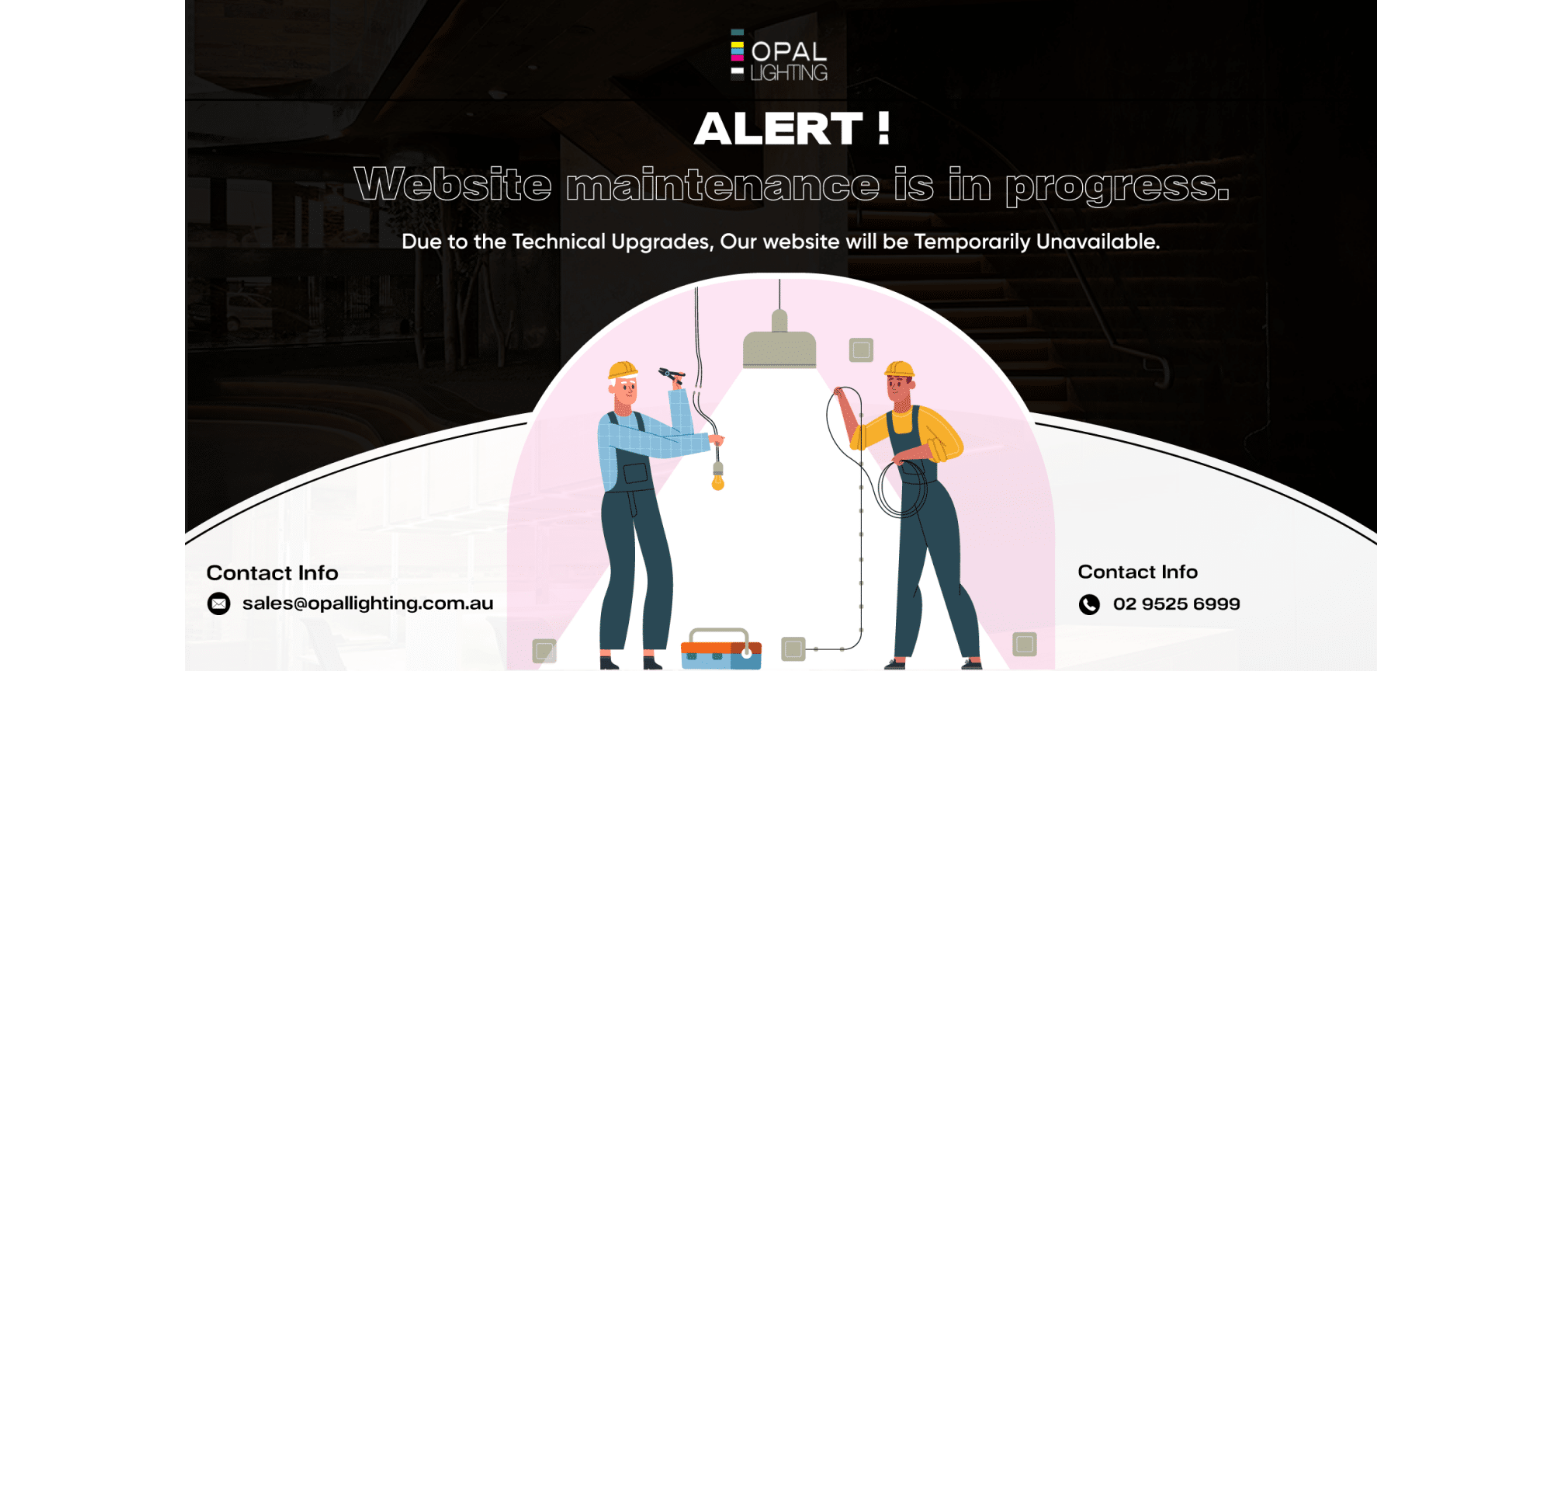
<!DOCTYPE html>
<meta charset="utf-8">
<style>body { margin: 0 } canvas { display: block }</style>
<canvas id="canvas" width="1561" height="1509"></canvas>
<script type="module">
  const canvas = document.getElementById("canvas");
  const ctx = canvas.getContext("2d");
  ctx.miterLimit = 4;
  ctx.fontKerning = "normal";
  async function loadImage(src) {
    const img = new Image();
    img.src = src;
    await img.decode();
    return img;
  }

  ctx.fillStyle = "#ffffff";
  ctx.fillRect(0, 0, 1561, 1509);
  ctx.drawImage(await loadImage("img1.png"), 185, 0, 1192, 671);
</script>
